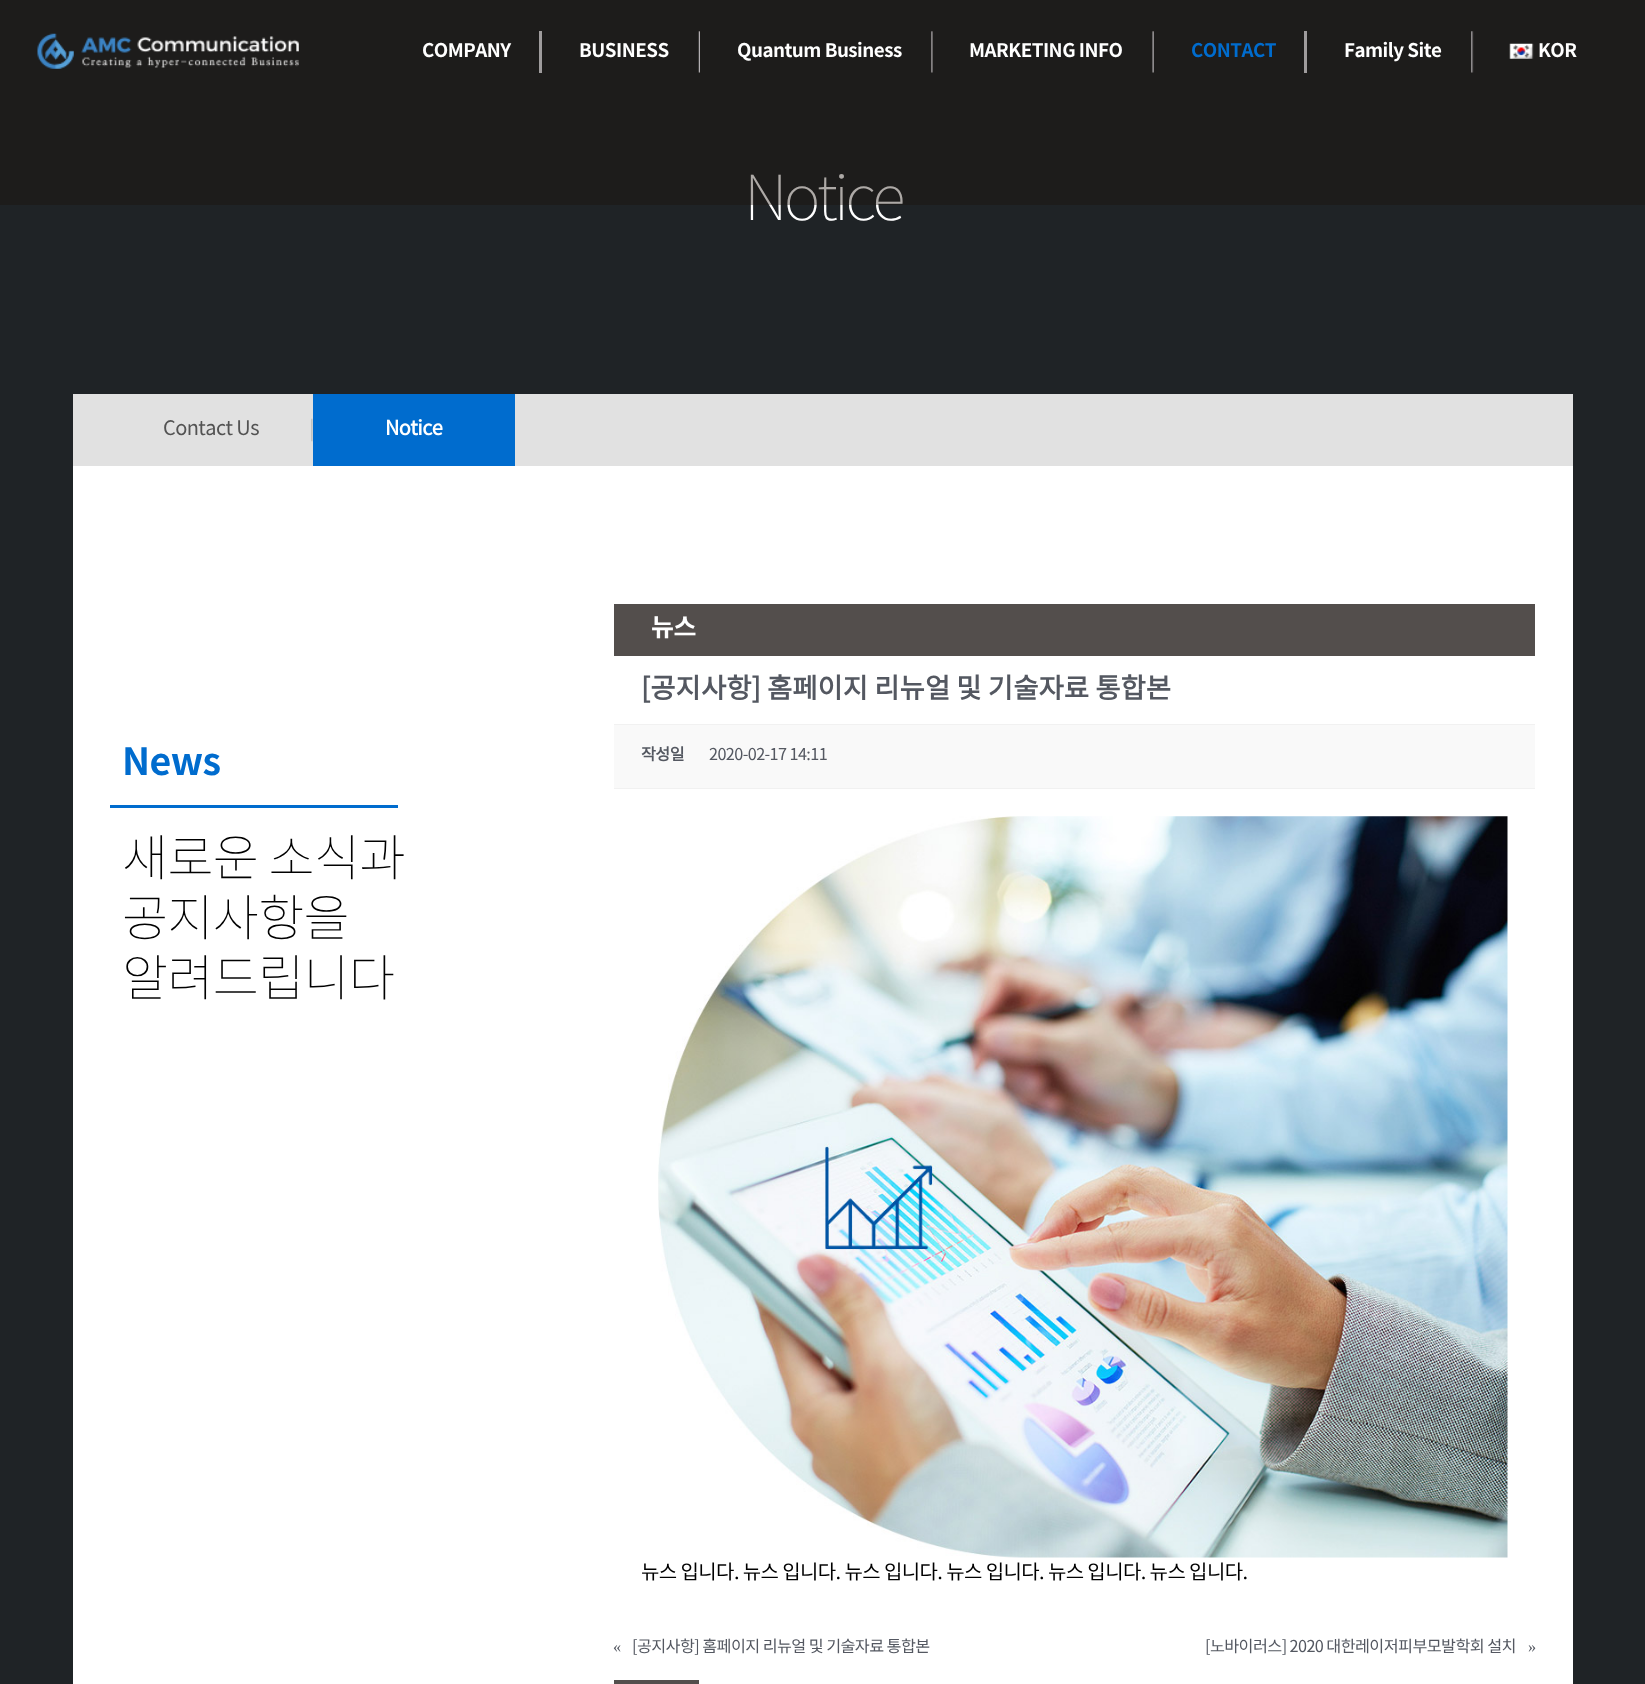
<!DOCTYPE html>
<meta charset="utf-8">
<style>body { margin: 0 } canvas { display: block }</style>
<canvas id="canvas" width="1645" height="1684"></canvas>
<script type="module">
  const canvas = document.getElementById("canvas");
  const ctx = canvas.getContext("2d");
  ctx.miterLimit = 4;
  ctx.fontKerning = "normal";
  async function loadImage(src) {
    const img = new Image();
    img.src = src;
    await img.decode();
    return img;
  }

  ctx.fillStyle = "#1f2326";
  ctx.fillRect(0, 0, 1645, 1684);
  ctx.letterSpacing = "-3.75px";
  ctx.font = "100 62.5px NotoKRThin";
  ctx.fillStyle = "#ffffff";
  ctx.fillText("Notice", 744, 220);
  ctx.fillStyle = "rgba(29, 17, 8, 0.36)";
  ctx.fillRect(0, 0, 1645, 205);
  ctx.drawImage(await loadImage("img1.png"), 37, 33, 262, 36);
  ctx.fillStyle = "#9f9c9d";
  ctx.fillRect(539, 31, 3, 42);
  ctx.letterSpacing = "-0.5px";
  ctx.font = "bold 18.75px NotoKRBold";
  ctx.fillStyle = "#ffffff";
  ctx.fillText("COMPANY", 422, 57);
  ctx.drawImage(await loadImage("img2.png"), 698, 31, 2, 42);
  ctx.fillText("BUSINESS", 579, 57);
  ctx.drawImage(await loadImage("img3.png"), 931, 31, 2, 42);
  ctx.fillText("Quantum Business", 737, 57);
  ctx.drawImage(await loadImage("img4.png"), 1152, 31, 2, 42);
  ctx.fillText("MARKETING INFO", 969, 57);
  ctx.fillStyle = "#9f9c9d";
  ctx.fillRect(1304, 31, 3, 42);
  ctx.fillStyle = "#006cce";
  ctx.fillText("CONTACT", 1191, 57);
  ctx.drawImage(await loadImage("img5.png"), 1471, 31, 3, 42);
  ctx.fillStyle = "#ffffff";
  ctx.fillText("Family Site", 1344, 57);
  ctx.drawImage(await loadImage("img6.png"), 1509, 43, 25, 16);
  ctx.fillText("KOR", 1538, 57);
  ctx.fillStyle = "#e1e1e1";
  ctx.fillRect(73, 394, 1500, 72);
  ctx.drawImage(await loadImage("img7.png"), 311, 418, 2, 24);
  ctx.letterSpacing = "-0.6px";
  ctx.font = "20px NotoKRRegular";
  ctx.fillStyle = "#535353";
  ctx.fillText("Contact Us", 163, 435);
  ctx.fillStyle = "#006cce";
  ctx.fillRect(313, 394, 202, 72);
  ctx.font = "bold 20px NotoKRRegular";
  ctx.fillStyle = "#ffffff";
  ctx.fillText("Notice", 385, 435);
  ctx.fillRect(73, 466, 1500, 1218);
  ctx.fillStyle = "#006cce";
  ctx.fillRect(110, 805, 288, 3);
  ctx.font = "bold 37.5px NotoKRBold";
  ctx.fillText("News", 122, 775);
  ctx.font = "100 50px NotoKRThin";
  ctx.fillStyle = "#000000";
  ctx.fillText("새로운 소식과", 122, 876);
  ctx.fillText("공지사항을", 122, 936);
  ctx.fillText("알려드립니다", 122, 996);
  ctx.fillStyle = "#534e4c";
  ctx.fillRect(614, 604, 921, 52);
  ctx.font = "bold 25px NotoKRBold";
  ctx.fillStyle = "#ffffff";
  ctx.fillText("뉴스", 651, 636);
  ctx.letterSpacing = "0px";
  ctx.font = "bold 27.5px NotoKRRegular";
  ctx.fillStyle = "#545861";
  ctx.fillText("[공지사항] 홈페이지 리뉴얼 및 기술자료 통합본", 641, 698);
  ctx.fillStyle = "#f9f9f9";
  ctx.fillRect(614, 725, 921, 63);
  ctx.fillStyle = "#f1f1f1";
  ctx.fillRect(614, 724, 921, 1);
  ctx.fillRect(614, 788, 921, 1);
  ctx.letterSpacing = "-0.6px";
  ctx.font = "bold 16.25px NotoKRRegular";
  ctx.fillStyle = "#545861";
  ctx.fillText("작성일", 641, 760);
  ctx.font = "16.25px NotoKRRegular";
  ctx.fillText("2020-02-17 14:11", 709, 760);
  ctx.drawImage(await loadImage("img8.png"), 658, 816, 850, 742);
  ctx.font = "20px NotoKRRegular";
  ctx.fillStyle = "#000000";
  ctx.fillText("뉴스 입니다. 뉴스 입니다. 뉴스 입니다. 뉴스 입니다. 뉴스 입니다. 뉴스 입니다.", 641, 1579);
  ctx.font = "16.25px Liberation Serif";
  ctx.fillStyle = "#545861";
  ctx.fillText("«", 613, 1652);
  ctx.font = "16.25px NotoKRRegular";
  ctx.fillText("[공지사항] 홈페이지 리뉴얼 및 기술자료 통합본", 632, 1652);
  ctx.fillText("[노바이러스] 2020 대한레이저피부모발학회 설치", 1205, 1652);
  ctx.font = "16.25px Liberation Serif";
  ctx.fillText("»", 1528, 1652);
  ctx.fillStyle = "#534e4c";
  ctx.fillRect(614, 1680, 85, 4);
</script>
